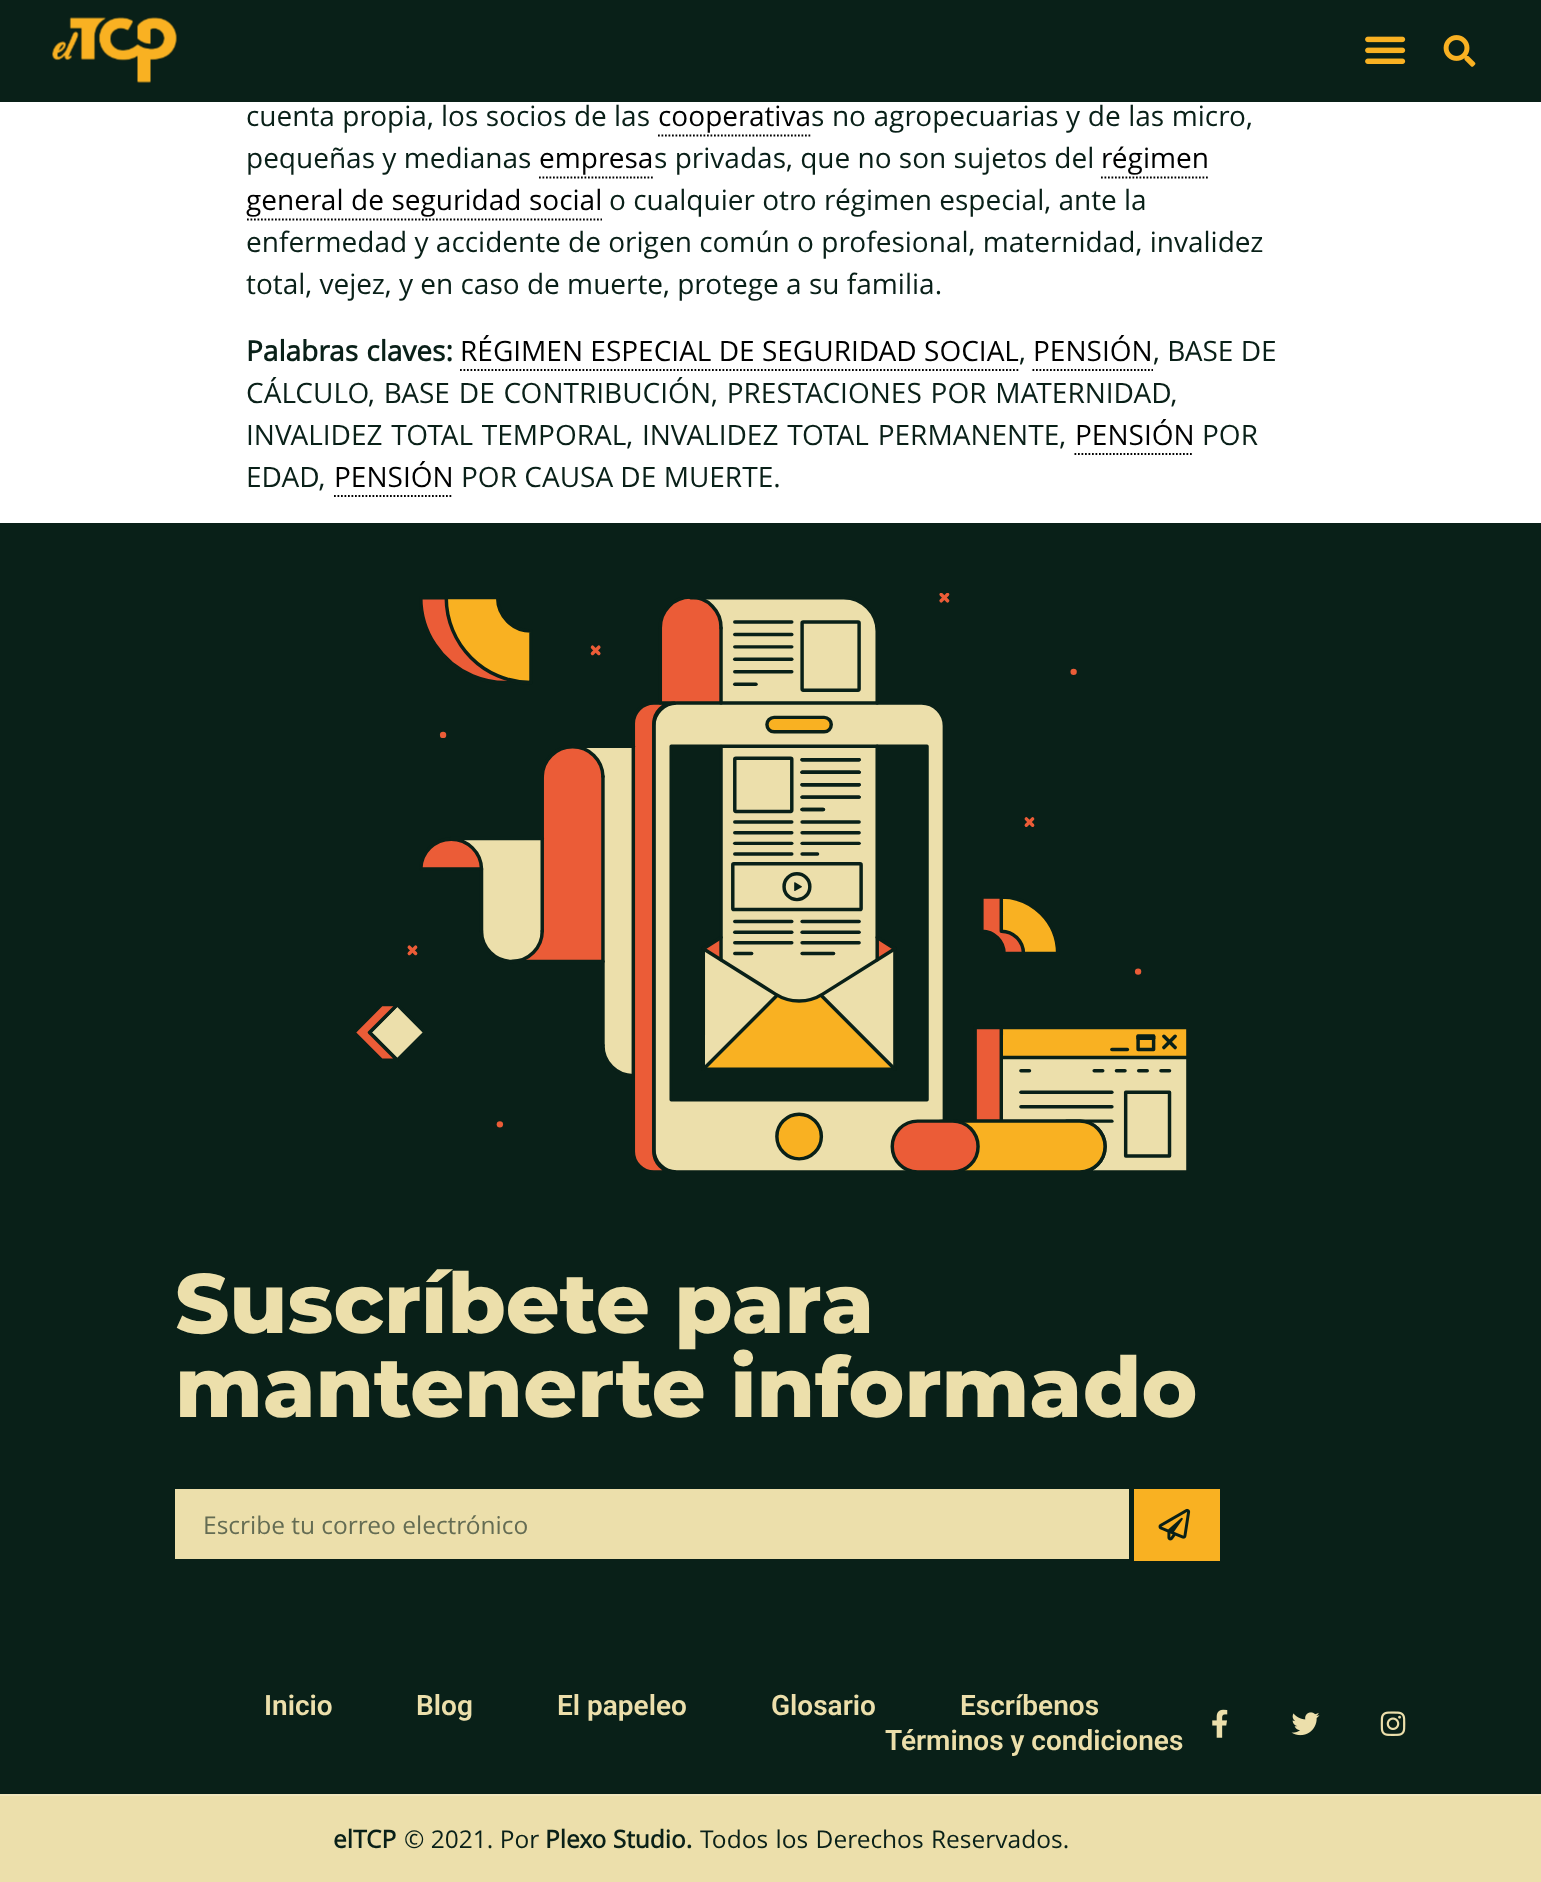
<!DOCTYPE html>
<meta charset="utf-8">
<style>body { margin: 0 } canvas { display: block }</style>
<canvas id="canvas" width="1541" height="1882"></canvas>
<script type="module">
  const canvas = document.getElementById("canvas");
  const ctx = canvas.getContext("2d");
  ctx.miterLimit = 4;
  ctx.fontKerning = "normal";
  async function loadImage(src) {
    const img = new Image();
    img.src = src;
    await img.decode();
    return img;
  }

  ctx.fillStyle = "#ffffff";
  ctx.fillRect(0, 0, 1541, 1882);
  ctx.fillStyle = "#092018";
  ctx.fillRect(0, 0, 1541, 102);
  ctx.drawImage(await loadImage("img1.png"), 52, 17, 125, 66);
  ctx.drawImage(await loadImage("img2.png"), 1365, 36, 41, 28);
  ctx.drawImage(await loadImage("img3.png"), 1443, 35, 33, 32);
  ctx.font = "28px Open Sans";
  ctx.fillText("cuenta propia, los socios de las", 246, 126);
  ctx.fillStyle = "#000000";
  ctx.fillText("cooperativa", 658, 126);
  ctx.beginPath();
  ctx.moveTo(658, 135.5);
  ctx.lineTo(812, 135.5);
  ctx.strokeStyle = "#000000";
  ctx.lineWidth = 1.8;
  ctx.setLineDash([1.75, 1.75]);
  ctx.stroke();
  ctx.wordSpacing = "0.25px";
  ctx.fillStyle = "#092018";
  ctx.fillText("s no agropecuarias y de las micro,", 811, 126);
  ctx.wordSpacing = "0px";
  ctx.fillText("pequeñas y medianas", 246, 168);
  ctx.fillStyle = "#000000";
  ctx.fillText("empresa", 539, 168);
  ctx.beginPath();
  ctx.moveTo(539, 177.5);
  ctx.lineTo(653, 177.5);
  ctx.stroke();
  ctx.fillStyle = "#092018";
  ctx.fillText("s privadas, que no son sujetos del", 654, 168);
  ctx.fillStyle = "#000000";
  ctx.fillText("régimen", 1101, 168);
  ctx.beginPath();
  ctx.moveTo(1101, 177.5);
  ctx.lineTo(1209, 177.5);
  ctx.stroke();
  ctx.wordSpacing = "0.25px";
  ctx.fillText("general de seguridad social", 246, 210);
  ctx.beginPath();
  ctx.moveTo(247, 219.5);
  ctx.lineTo(602, 219.5);
  ctx.stroke();
  ctx.wordSpacing = "0px";
  ctx.fillStyle = "#092018";
  ctx.fillText("o cualquier otro régimen especial, ante la", 609, 210);
  ctx.fillText("enfermedad y accidente de origen común o profesional, maternidad, invalidez", 246, 252);
  ctx.fillText("total, vejez, y en caso de muerte, protege a su familia.", 246, 294);
  ctx.wordSpacing = "1px";
  ctx.font = "bold 28px Open Sans";
  ctx.fillText("Palabras claves:", 246, 361);
  ctx.wordSpacing = "0px";
  ctx.font = "28px Open Sans";
  ctx.fillStyle = "#000000";
  ctx.fillText("RÉGIMEN ESPECIAL DE SEGURIDAD SOCIAL", 460, 361);
  ctx.beginPath();
  ctx.moveTo(460, 370);
  ctx.lineTo(1018.5, 370);
  ctx.stroke();
  ctx.fillStyle = "#092018";
  ctx.fillText(",", 1019, 361);
  ctx.fillStyle = "#000000";
  ctx.fillText("PENSIÓN", 1033, 361);
  ctx.beginPath();
  ctx.moveTo(1032.5, 370);
  ctx.lineTo(1153, 370);
  ctx.stroke();
  ctx.fillStyle = "#092018";
  ctx.fillText(", BASE DE", 1153, 361);
  ctx.wordSpacing = "1.5px";
  ctx.fillText("CÁLCULO, BASE DE CONTRIBUCIÓN, PRESTACIONES POR MATERNIDAD,", 246, 403);
  ctx.fillText("INVALIDEZ TOTAL TEMPORAL, INVALIDEZ TOTAL PERMANENTE,", 246, 445);
  ctx.wordSpacing = "0px";
  ctx.fillStyle = "#000000";
  ctx.fillText("PENSIÓN", 1075, 445);
  ctx.beginPath();
  ctx.moveTo(1074.5, 454);
  ctx.lineTo(1193.5, 454);
  ctx.stroke();
  ctx.fillStyle = "#092018";
  ctx.fillText("POR", 1202, 445);
  ctx.fillText("EDAD,", 246, 487);
  ctx.fillStyle = "#000000";
  ctx.fillText("PENSIÓN", 334, 487);
  ctx.beginPath();
  ctx.moveTo(334, 496);
  ctx.lineTo(453, 496);
  ctx.stroke();
  ctx.fillStyle = "#092018";
  ctx.fillText("POR CAUSA DE MUERTE.", 461, 487);
  ctx.fillRect(0, 523, 1541, 1271);
  ctx.drawImage(await loadImage("img4.png"), 356, 593, 831, 578);
  ctx.font = "800 84px Montserrat";
  ctx.fillStyle = "#ecdfab";
  ctx.fillText("Suscríbete para", 175, 1333);
  ctx.fillText("mantenerte informado", 175, 1417);
  ctx.fillRect(175, 1489, 954, 70);
  ctx.font = "24.5px Open Sans";
  ctx.fillStyle = "#646c53";
  ctx.fillText("Escribe tu correo electrónico", 203, 1534);
  ctx.fillStyle = "#f9b122";
  ctx.fillRect(1134, 1489, 86, 72);
  ctx.drawImage(await loadImage("img5.png"), 1158, 1508, 33, 33);
  ctx.font = "600 28px Roboto";
  ctx.fillStyle = "#ecdfab";
  ctx.fillText("Inicio", 264, 1715);
  ctx.fillText("Blog", 416, 1715);
  ctx.fillText("El papeleo", 557, 1715);
  ctx.fillText("Glosario", 771, 1715);
  ctx.fillText("Escríbenos", 960, 1715);
  ctx.fillText("Términos y condiciones", 885, 1750);
  ctx.drawImage(await loadImage("img6.png"), 1212, 1709, 16, 29);
  ctx.drawImage(await loadImage("img7.png"), 1291, 1712, 29, 24);
  ctx.drawImage(await loadImage("img8.png"), 1380, 1711, 26, 25);
  ctx.fillRect(0, 1796, 1541, 86);
  ctx.fillStyle = "#f0e5bc";
  ctx.fillRect(0, 1794, 1541, 2);
  ctx.font = "bold 24.5px Open Sans";
  ctx.fillStyle = "#092018";
  ctx.fillText("elTCP", 333, 1848);
  ctx.font = "24.5px Open Sans";
  ctx.fillText("© 2021. Por", 404, 1848);
  ctx.font = "bold 24.5px Open Sans";
  ctx.fillText("Plexo Studio.", 545, 1848);
  ctx.wordSpacing = "1px";
  ctx.font = "24.5px Open Sans";
  ctx.fillText("Todos los Derechos Reservados.", 700, 1848);
</script>
